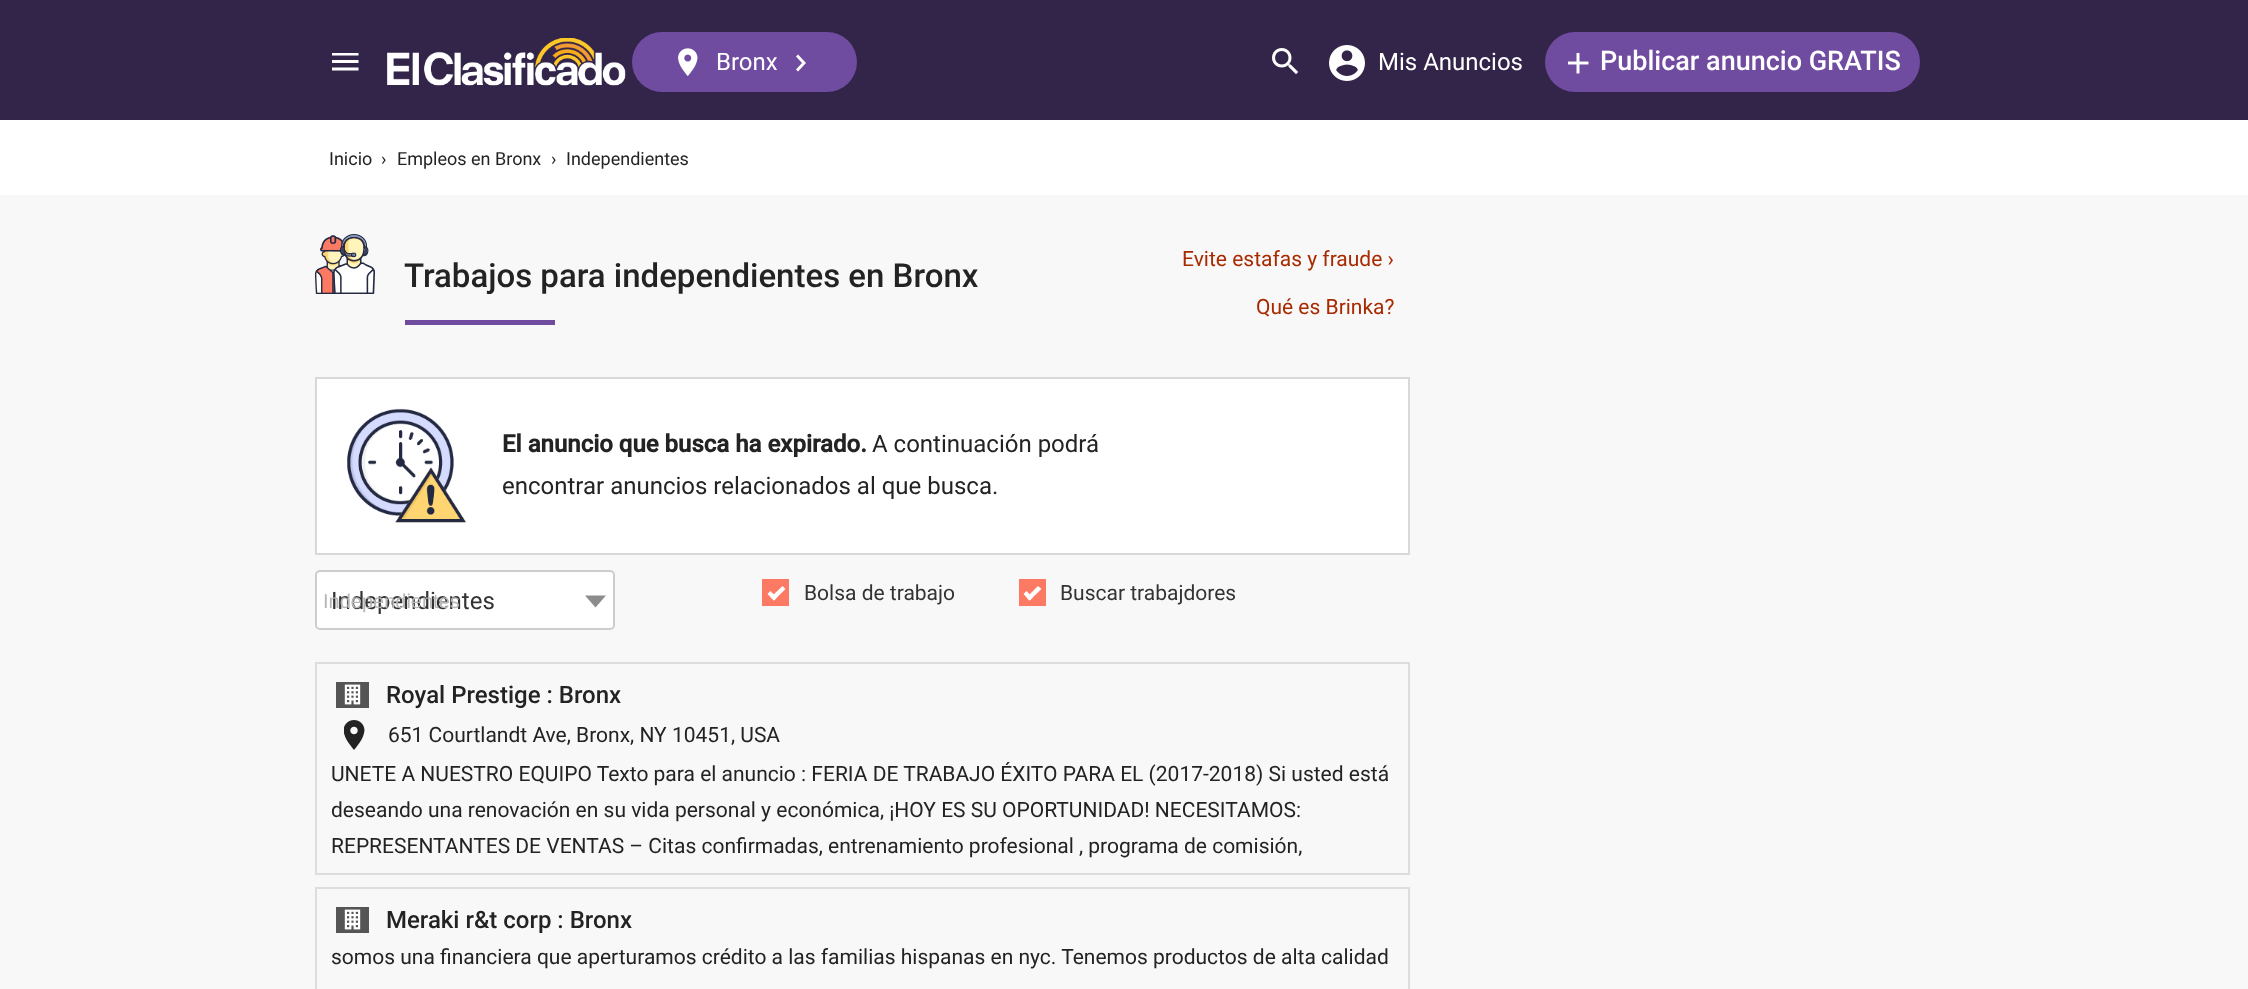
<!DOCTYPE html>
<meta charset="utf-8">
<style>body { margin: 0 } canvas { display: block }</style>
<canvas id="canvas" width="2248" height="989"></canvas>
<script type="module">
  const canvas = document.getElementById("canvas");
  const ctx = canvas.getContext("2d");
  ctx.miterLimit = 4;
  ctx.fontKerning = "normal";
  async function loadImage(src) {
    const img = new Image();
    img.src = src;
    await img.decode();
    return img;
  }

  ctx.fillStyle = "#f8f8f8";
  ctx.fillRect(0, 0, 2248, 989);
  ctx.fillStyle = "#322549";
  ctx.fillRect(0, 0, 2248, 120);
  ctx.drawImage(await loadImage("img1.png"), 332, 53, 27, 18);
  ctx.drawImage(await loadImage("img2.png"), 387, 38, 239, 48);
  ctx.fillStyle = "#704ca1";
  ctx.beginPath();
  ctx.roundRect(632, 32, 225, 60, 30);
  ctx.fill();
  ctx.drawImage(await loadImage("img3.png"), 678, 48, 20, 28);
  ctx.font = "24px Roboto";
  ctx.fillStyle = "#ffffff";
  ctx.fillText("Bronx", 716, 70);
  ctx.beginPath();
  ctx.moveTo(796, 69.5);
  ctx.lineTo(802, 63);
  ctx.lineTo(796, 56.5);
  ctx.lineTo(798, 54.5);
  ctx.lineTo(806, 63);
  ctx.lineTo(798, 71.5);
  ctx.closePath();
  ctx.fill();
  ctx.drawImage(await loadImage("img4.png"), 1272, 48, 27, 27);
  ctx.drawImage(await loadImage("img5.png"), 1329, 45, 36, 36);
  ctx.fillText("Mis Anuncios", 1378, 70);
  ctx.fillStyle = "#704ca1";
  ctx.beginPath();
  ctx.roundRect(1545, 32, 375, 60, 30);
  ctx.fill();
  ctx.drawImage(await loadImage("img6.png"), 1568, 53, 21, 21);
  ctx.font = "500 27px Roboto";
  ctx.fillStyle = "#ffffff";
  ctx.fillText("Publicar anuncio GRATIS", 1600, 70);
  ctx.fillRect(0, 120, 2248, 75);
  ctx.font = "18px Roboto";
  ctx.fillStyle = "#232323";
  ctx.fillText("Inicio", 329, 165);
  ctx.fillText("›", 381, 165);
  ctx.fillText("Empleos en Bronx", 397, 165);
  ctx.fillText("›", 551, 165);
  ctx.fillText("Independientes", 566, 165);
  ctx.drawImage(await loadImage("img7.png"), 315, 234, 60, 60);
  ctx.font = "500 33px Roboto";
  ctx.fillText("Trabajos para independientes en Bronx", 404, 287);
  ctx.fillStyle = "#704ca1";
  ctx.fillRect(405, 320, 150, 5);
  ctx.font = "21px Roboto";
  ctx.fillStyle = "#a82a00";
  ctx.fillText("Evite estafas y fraude ›", 1182, 266);
  ctx.fillText("Qué es Brinka?", 1256, 314);
  ctx.fillStyle = "#ffffff";
  ctx.beginPath();
  ctx.rect(316, 378, 1093, 176);
  ctx.fill();
  ctx.strokeStyle = "#d8d8d8";
  ctx.lineWidth = 2;
  ctx.stroke();
  ctx.drawImage(await loadImage("img8.png"), 347, 408, 119, 115);
  ctx.font = "bold 24px Roboto";
  ctx.fillStyle = "#232323";
  ctx.fillText("El anuncio que busca ha expirado.", 502, 452);
  ctx.font = "24px Roboto";
  ctx.fillText("A continuación podrá", 872, 452);
  ctx.fillText("encontrar anuncios relacionados al que busca.", 502, 494);
  ctx.fillStyle = "#ffffff";
  ctx.beginPath();
  ctx.roundRect(316, 571, 298, 58, 4);
  ctx.fill();
  ctx.strokeStyle = "#cccccc";
  ctx.stroke();
  ctx.fillStyle = "#333333";
  ctx.fillText("Independientes", 331, 609);
  ctx.fillStyle = "#8c8c8c";
  ctx.beginPath();
  ctx.moveTo(585, 595.5);
  ctx.lineTo(606, 595.5);
  ctx.lineTo(595.5, 607.5);
  ctx.closePath();
  ctx.fill();
  ctx.font = "20px Liberation Sans";
  ctx.fillStyle = "#b7b7b7";
  ctx.fillText("Independientes", 323, 608);
  ctx.fillStyle = "#fc7a63";
  ctx.fillRect(762, 579, 27, 27);
  ctx.font = "21px Roboto";
  ctx.fillStyle = "#333333";
  ctx.fillText("Bolsa de trabajo", 804, 600);
  ctx.fillStyle = "#ffffff";
  ctx.beginPath();
  ctx.moveTo(770.5, 597.5);
  ctx.lineTo(782.5, 586);
  ctx.lineTo(785.5, 589);
  ctx.lineTo(774, 600.5);
  ctx.closePath();
  ctx.fill();
  ctx.beginPath();
  ctx.moveTo(767.5, 594);
  ctx.lineTo(770.5, 591);
  ctx.lineTo(777, 597.5);
  ctx.lineTo(774, 600.5);
  ctx.closePath();
  ctx.fill();
  ctx.fillStyle = "#fc7a63";
  ctx.fillRect(1019, 579, 27, 27);
  ctx.fillStyle = "#333333";
  ctx.fillText("Buscar trabajdores", 1060, 600);
  ctx.fillStyle = "#ffffff";
  ctx.beginPath();
  ctx.moveTo(1026.5, 597.5);
  ctx.lineTo(1038, 586);
  ctx.lineTo(1041.5, 589);
  ctx.lineTo(1029.5, 600.5);
  ctx.closePath();
  ctx.fill();
  ctx.beginPath();
  ctx.moveTo(1023.5, 594);
  ctx.lineTo(1026.5, 591);
  ctx.lineTo(1033, 597.5);
  ctx.lineTo(1029.5, 600.5);
  ctx.closePath();
  ctx.fill();
  ctx.strokeStyle = "#dddddd";
  ctx.strokeRect(316, 663, 1093, 211);
  ctx.drawImage(await loadImage("img9.png"), 336, 682, 33, 26);
  ctx.font = "500 24px Roboto";
  ctx.fillStyle = "#232323";
  ctx.fillText("Royal Prestige : Bronx", 386, 703);
  ctx.drawImage(await loadImage("img10.png"), 344, 720, 21, 30);
  ctx.font = "21px Roboto";
  ctx.fillText("651 Courtlandt Ave, Bronx, NY 10451, USA", 388, 742);
  ctx.fillText("UNETE A NUESTRO EQUIPO Texto para el anuncio : FERIA DE TRABAJO ÉXITO PARA EL (2017-2018) Si usted está", 331, 781);
  ctx.save();
  ctx.beginPath();
  ctx.rect(332, 678, 1062, 180);
  ctx.clip();
  ctx.fillText("deseando una renovación en su vida personal y económica, ¡HOY ES SU OPORTUNIDAD! NECESITAMOS:", 331, 817);
  ctx.restore();
  ctx.fillText("REPRESENTANTES DE VENTAS – Citas confirmadas, entrenamiento profesional , programa de comisión,", 331, 853);
  ctx.strokeRect(316, 888, 1093, 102);
  ctx.drawImage(await loadImage("img9.png"), 336, 907, 33, 26);
  ctx.font = "500 24px Roboto";
  ctx.fillText("Meraki r&t corp : Bronx", 386, 928);
  ctx.font = "21px Roboto";
  ctx.fillText("somos una financiera que aperturamos crédito a las familias hispanas en nyc. Tenemos productos de alta calidad", 331, 964);
</script>
